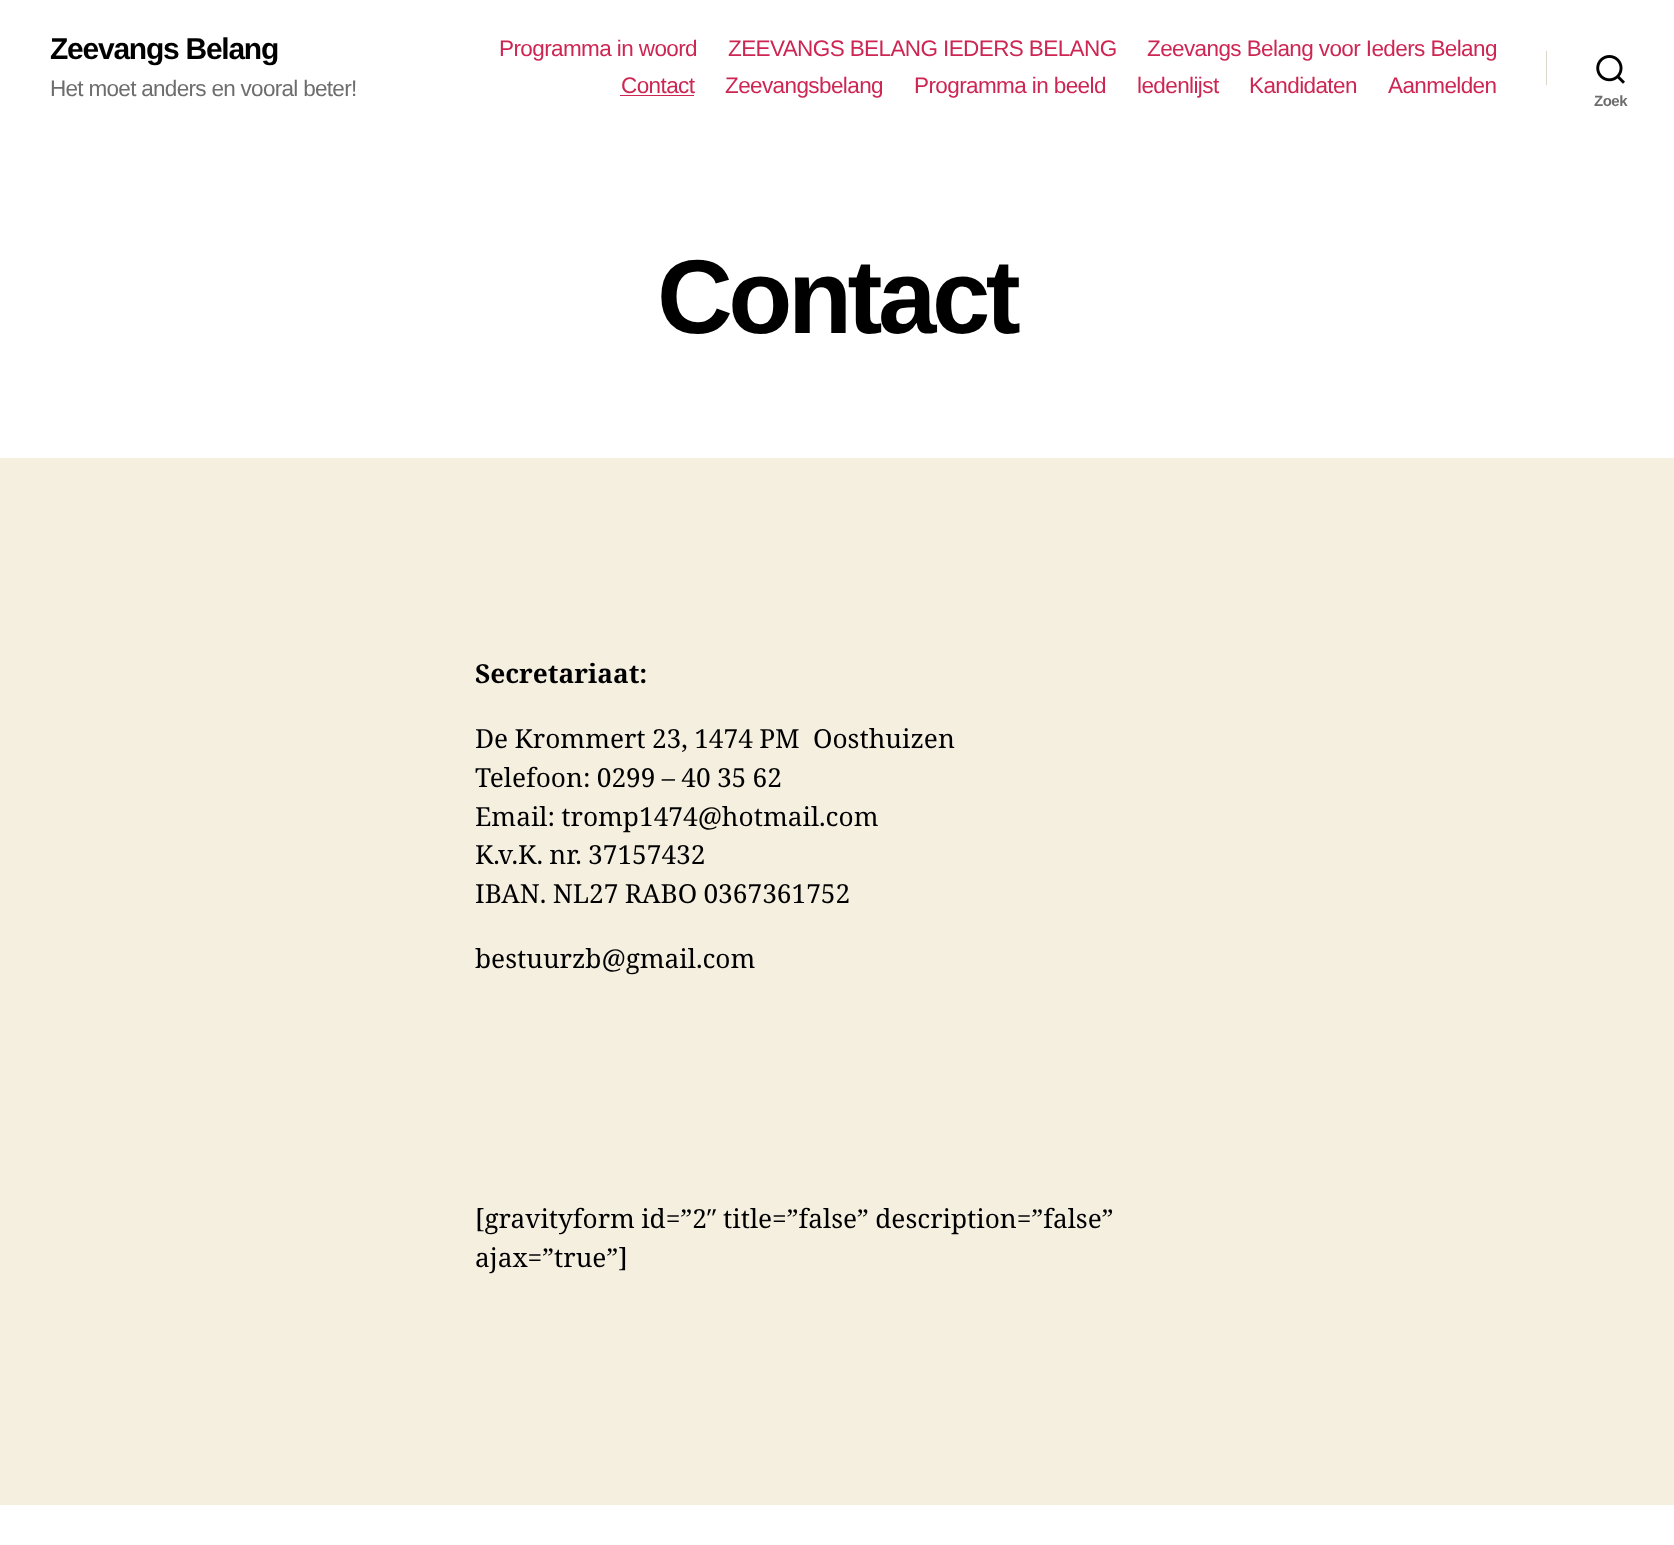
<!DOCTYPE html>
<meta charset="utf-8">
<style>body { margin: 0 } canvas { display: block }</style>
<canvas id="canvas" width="1674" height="1545"></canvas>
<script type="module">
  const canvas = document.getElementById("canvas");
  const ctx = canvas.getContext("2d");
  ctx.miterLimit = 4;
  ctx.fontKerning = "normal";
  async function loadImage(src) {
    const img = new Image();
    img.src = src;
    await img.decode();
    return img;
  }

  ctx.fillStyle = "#f5efe0";
  ctx.fillRect(0, 0, 1674, 1545);
  ctx.fillStyle = "#ffffff";
  ctx.fillRect(0, 0, 1674, 458);
  ctx.letterSpacing = "-1.25px";
  ctx.font = "bold 30px Liberation Sans";
  ctx.fillStyle = "#000000";
  ctx.fillText("Zeevangs Belang", 50, 59);
  ctx.letterSpacing = "-0.7px";
  ctx.font = "22.5px Liberation Sans";
  ctx.fillStyle = "#6d6d6d";
  ctx.fillText("Het moet anders en vooral beter!", 50, 96);
  ctx.letterSpacing = "-0.6px";
  ctx.fillStyle = "#cd2653";
  ctx.fillText("Programma in woord", 499, 56);
  ctx.fillText("ZEEVANGS BELANG IEDERS BELANG", 728, 56);
  ctx.fillText("Zeevangs Belang voor Ieders Belang", 1147, 56);
  ctx.fillText("Contact", 621, 93);
  ctx.fillRect(620, 95, 74, 1);
  ctx.fillText("Zeevangsbelang", 725, 93);
  ctx.fillText("Programma in beeld", 914, 93);
  ctx.fillText("ledenlijst", 1137, 93);
  ctx.fillText("Kandidaten", 1249, 93);
  ctx.fillText("Aanmelden", 1388, 93);
  ctx.fillStyle = "#dcd7ca";
  ctx.fillRect(1546, 51, 1, 34);
  ctx.drawImage(await loadImage("img1.png"), 1596, 55, 29, 29);
  ctx.letterSpacing = "-0.5px";
  ctx.font = "bold 15px Liberation Sans";
  ctx.fillStyle = "#6d6d6d";
  ctx.fillText("Zoek", 1594, 106);
  ctx.letterSpacing = "-4.5px";
  ctx.font = "bold 105px Liberation Sans";
  ctx.fillStyle = "#000000";
  ctx.fillText("Contact", 657, 333);
  ctx.letterSpacing = "0px";
  ctx.font = "bold 26.25px Noto Serif";
  ctx.fillText("Secretariaat:", 475, 683);
  ctx.wordSpacing = "-0.5px";
  ctx.font = "26.25px Noto Serif";
  ctx.fillText("De Krommert 23, 1474 PM", 475, 748);
  ctx.wordSpacing = "0px";
  ctx.fillText("Oosthuizen", 813, 748);
  ctx.wordSpacing = "-0.5px";
  ctx.fillText("Telefoon: 0299 – 40 35 62", 475, 787);
  ctx.fillText("Email: tromp1474@hotmail.com", 475, 826);
  ctx.fillText("K.v.K. nr. 37157432", 475, 864);
  ctx.fillText("IBAN. NL27 RABO 0367361752", 475, 903);
  ctx.wordSpacing = "0px";
  ctx.fillText("bestuurzb@gmail.com", 475, 968);
  ctx.wordSpacing = "-0.5px";
  ctx.fillText("[gravityform id=”2″ title=”false” description=”false”", 475, 1228);
  ctx.wordSpacing = "0px";
  ctx.fillText("ajax=”true”]", 475, 1267);
  ctx.fillStyle = "#ffffff";
  ctx.fillRect(0, 1505, 1674, 40);
</script>
